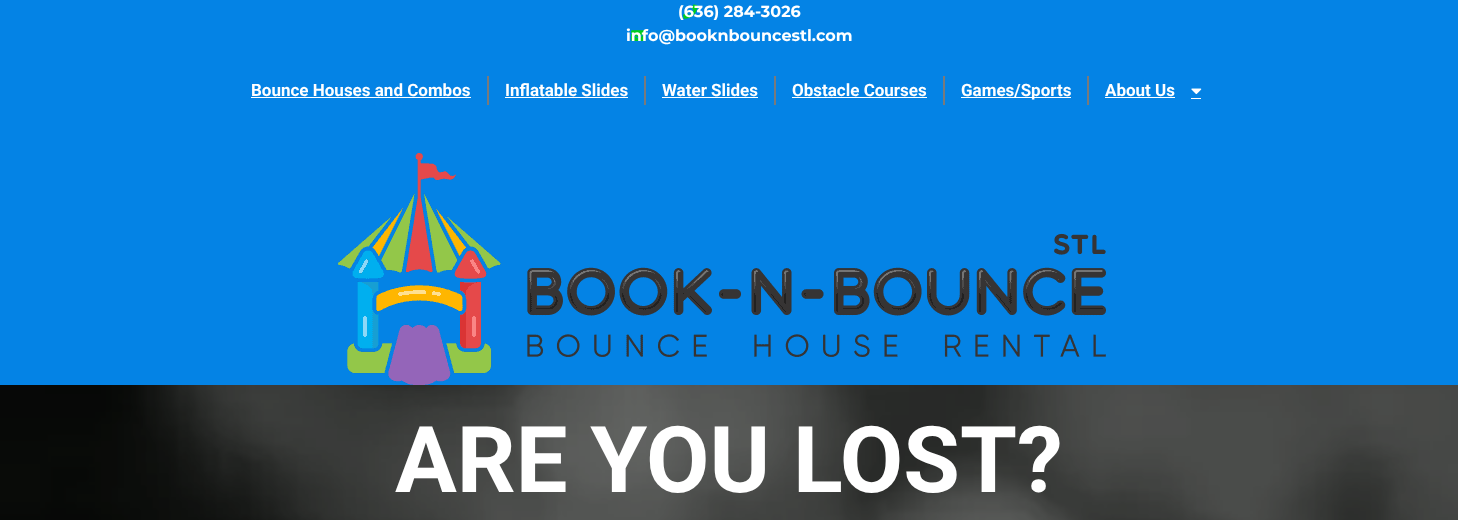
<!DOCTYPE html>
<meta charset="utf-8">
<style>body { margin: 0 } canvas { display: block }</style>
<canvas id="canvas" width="1458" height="520"></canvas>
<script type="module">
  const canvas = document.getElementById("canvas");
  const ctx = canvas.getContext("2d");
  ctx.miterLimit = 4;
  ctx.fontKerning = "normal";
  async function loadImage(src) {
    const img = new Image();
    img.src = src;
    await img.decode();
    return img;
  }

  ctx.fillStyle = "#0483e5";
  ctx.fillRect(0, 0, 1458, 520);
  ctx.drawImage(await loadImage("img1.png"), 683, 4, 15, 15);
  ctx.font = "bold 16px Montserrat";
  ctx.fillStyle = "#ffffff";
  ctx.fillText("(636) 284-3026", 678, 17);
  ctx.drawImage(await loadImage("img2.png"), 631, 30, 15, 11);
  ctx.fillText("info@booknbouncestl.com", 626, 41);
  ctx.font = "bold 17px Roboto";
  ctx.fillText("Bounce Houses and Combos", 251, 96);
  ctx.fillRect(251, 97, 220, 1);
  ctx.fillStyle = "#7a7a7a";
  ctx.fillRect(487, 76, 2, 29);
  ctx.fillStyle = "#ffffff";
  ctx.fillText("Inflatable Slides", 505, 96);
  ctx.fillRect(505, 97, 123, 1);
  ctx.fillStyle = "#7a7a7a";
  ctx.fillRect(644, 76, 2, 29);
  ctx.fillStyle = "#ffffff";
  ctx.fillText("Water Slides", 662, 96);
  ctx.fillRect(662, 97, 96, 1);
  ctx.fillStyle = "#7a7a7a";
  ctx.fillRect(774, 76, 2, 29);
  ctx.fillStyle = "#ffffff";
  ctx.fillText("Obstacle Courses", 792, 96);
  ctx.fillRect(792, 97, 135, 1);
  ctx.fillStyle = "#7a7a7a";
  ctx.fillRect(943, 76, 2, 29);
  ctx.fillStyle = "#ffffff";
  ctx.fillRect(961, 97, 110, 1);
  ctx.fillText("Games/Sports", 961, 96);
  ctx.fillStyle = "#7a7a7a";
  ctx.fillRect(1087, 76, 2, 29);
  ctx.fillStyle = "#ffffff";
  ctx.fillText("About Us", 1105, 96);
  ctx.fillRect(1105, 97, 70, 1);
  ctx.drawImage(await loadImage("img3.png"), 1191, 88, 11, 7);
  ctx.fillRect(1191, 98, 10, 1);
  ctx.drawImage(await loadImage("img4.png"), 338, 153, 768, 232);
  ctx.drawImage(await loadImage("img5.png"), 0, 385, 1458, 135);
  ctx.font = "bold 92px Roboto";
  ctx.fillText("ARE YOU LOST?", 395, 492);
</script>
